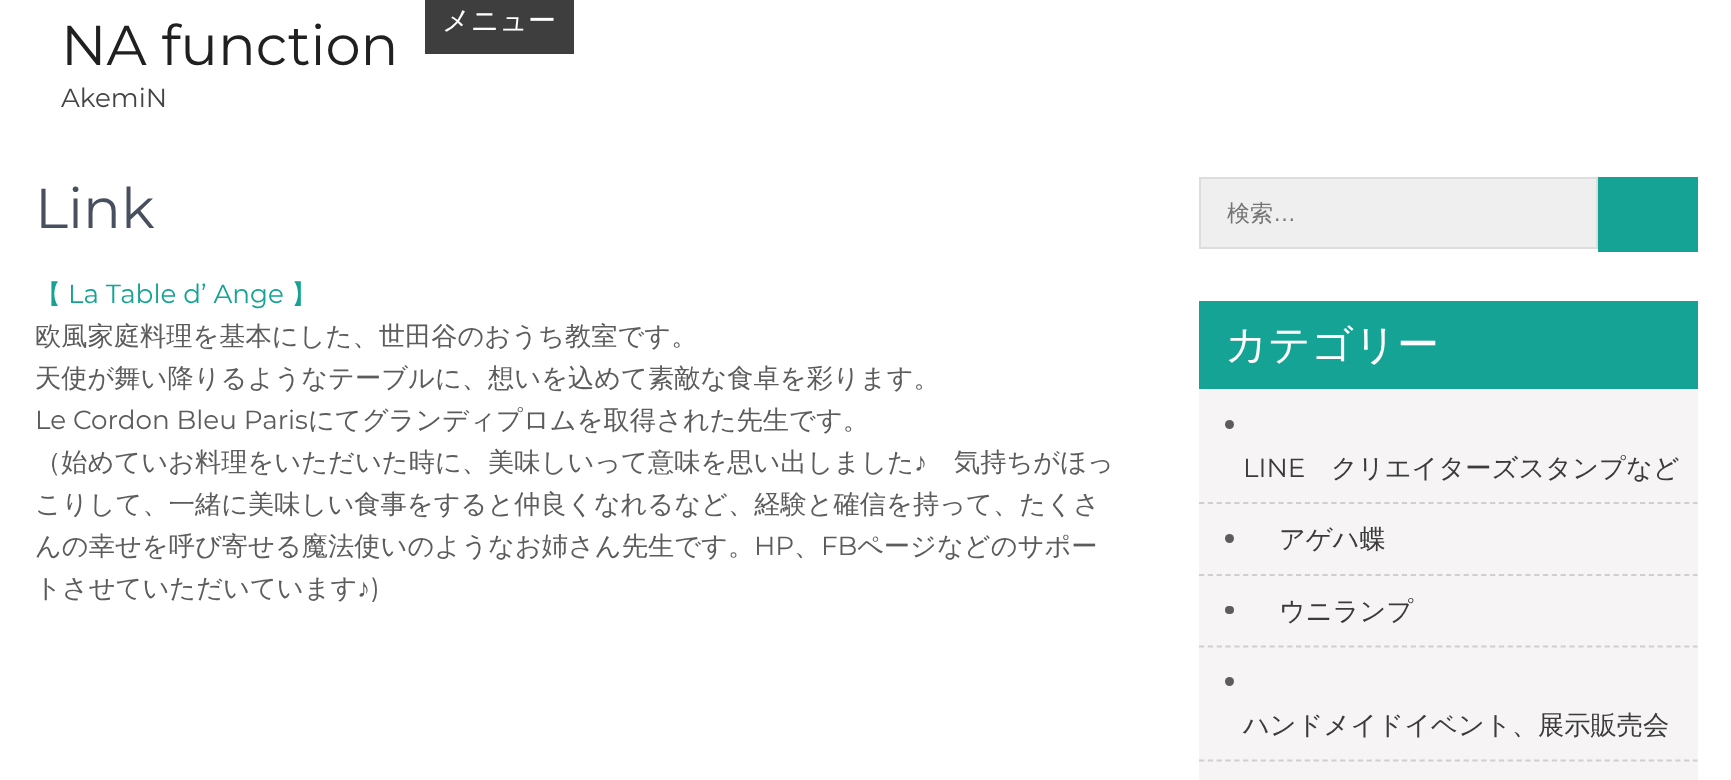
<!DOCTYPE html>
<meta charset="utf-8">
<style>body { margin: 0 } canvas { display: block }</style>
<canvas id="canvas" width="1731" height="780"></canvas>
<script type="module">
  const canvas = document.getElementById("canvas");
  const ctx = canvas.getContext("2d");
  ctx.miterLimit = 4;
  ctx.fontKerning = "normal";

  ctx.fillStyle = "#ffffff";
  ctx.fillRect(0, 0, 1731, 780);
  ctx.font = "56px Montserrat";
  ctx.fillStyle = "#202020";
  ctx.fillText("NA function", 61, 65);
  ctx.font = "26.25px Montserrat";
  ctx.fillStyle = "#444444";
  ctx.fillText("AkemiN", 61, 107);
  ctx.fillStyle = "#3e3e3e";
  ctx.fillRect(425, 0, 149, 54);
  ctx.font = "500 28px WenQuanYi Zen Hei";
  ctx.fillStyle = "#ffffff";
  ctx.fillText("メニュー", 442, 30);
  ctx.font = "56px Montserrat";
  ctx.fillStyle = "#484f5e";
  ctx.fillText("Link", 35, 228);
  ctx.font = "500 26.25px WenQuanYi Zen Hei";
  ctx.fillStyle = "#15a395";
  ctx.fillText("【", 35, 303);
  ctx.font = "26.25px Montserrat";
  ctx.fillText("La Table d’ Ange", 68, 303);
  ctx.font = "500 26.25px WenQuanYi Zen Hei";
  ctx.fillText("】", 291, 303);
  ctx.fillStyle = "#5c5c5c";
  ctx.fillText("欧風家庭料理を基本にした、世田谷のおうち教室です。", 35, 345);
  ctx.fillText("天使が舞い降りるようなテーブルに、想いを込めて素敵な食卓を彩ります。", 35, 387);
  ctx.font = "26.25px Montserrat";
  ctx.fillText("Le Cordon Bleu Paris", 35, 429);
  ctx.font = "500 26.25px WenQuanYi Zen Hei";
  ctx.fillText("にてグランディプロムを取得された先生です。", 308, 429);
  ctx.fillText("（始めていお料理をいただいた時に、美味しいって意味を思い出しました", 35, 471);
  ctx.font = "26.25px Liberation Sans";
  ctx.fillText("♪", 914, 471);
  ctx.font = "500 26.25px WenQuanYi Zen Hei";
  ctx.fillText("気持ちがほっ", 954, 471);
  ctx.fillText("こりして、一緒に美味しい食事をすると仲良くなれるなど、経験と確信を持って、たくさ", 35, 513);
  ctx.fillText("んの幸せを呼び寄せる魔法使いのようなお姉さん先生です。", 35, 555);
  ctx.font = "26.25px Montserrat";
  ctx.fillText("HP", 754, 555);
  ctx.font = "500 26.25px WenQuanYi Zen Hei";
  ctx.fillText("、", 794, 555);
  ctx.font = "26.25px Montserrat";
  ctx.fillText("FB", 821, 555);
  ctx.font = "500 26.25px WenQuanYi Zen Hei";
  ctx.fillText("ページなどのサポー", 857, 555);
  ctx.fillText("トさせていただいています", 35, 597);
  ctx.font = "26.25px Liberation Sans";
  ctx.fillText("♪", 357, 597);
  ctx.font = "26.25px Montserrat";
  ctx.fillText(")", 371, 597);
  ctx.fillStyle = "#f0efef";
  ctx.beginPath();
  ctx.rect(1200, 178, 397, 70);
  ctx.fill();
  ctx.strokeStyle = "#dddddd";
  ctx.lineWidth = 2;
  ctx.stroke();
  ctx.font = "500 23px WenQuanYi Zen Hei";
  ctx.fillStyle = "#757575";
  ctx.fillText("検索", 1227, 221);
  ctx.font = "23px Liberation Sans";
  ctx.fillText("…", 1273, 221);
  ctx.fillStyle = "#15a395";
  ctx.fillRect(1598, 177, 100, 75);
  ctx.fillStyle = "#f6f4f4";
  ctx.fillRect(1199, 389, 499, 391);
  ctx.fillStyle = "#15a395";
  ctx.fillRect(1199, 301, 499, 88);
  ctx.font = "500 42px WenQuanYi Zen Hei";
  ctx.fillStyle = "#ffffff";
  ctx.fillText("カテゴリー", 1225, 359);
  ctx.beginPath();
  ctx.moveTo(1199, 503);
  ctx.lineTo(1697.5, 503);
  ctx.strokeStyle = "#d0cfcf";
  ctx.lineWidth = 1.8;
  ctx.setLineDash([5.25, 3.57]);
  ctx.stroke();
  ctx.fillStyle = "#5c5c5c";
  ctx.beginPath();
  ctx.arc(1229.5, 424.5, 4.5, 0, Math.PI * 2);
  ctx.fill();
  ctx.font = "26.25px Montserrat";
  ctx.fillStyle = "#3b3b3b";
  ctx.fillText("LINE", 1243, 477);
  ctx.font = "500 26.25px WenQuanYi Zen Hei";
  ctx.fillText("クリエイターズスタンプなど", 1331, 477);
  ctx.beginPath();
  ctx.moveTo(1199, 575);
  ctx.lineTo(1697.5, 575);
  ctx.stroke();
  ctx.fillStyle = "#5c5c5c";
  ctx.beginPath();
  ctx.arc(1229.5, 538.5, 4.5, 0, Math.PI * 2);
  ctx.fill();
  ctx.fillStyle = "#3b3b3b";
  ctx.fillText("アゲハ蝶", 1279, 548);
  ctx.beginPath();
  ctx.moveTo(1199, 646.5);
  ctx.lineTo(1697.5, 646.5);
  ctx.stroke();
  ctx.fillStyle = "#5c5c5c";
  ctx.beginPath();
  ctx.roundRect(1225, 606, 9, 8, 4);
  ctx.fill();
  ctx.fillStyle = "#3b3b3b";
  ctx.fillText("ウニランプ", 1279, 620);
  ctx.beginPath();
  ctx.moveTo(1199, 760.5);
  ctx.lineTo(1697.5, 760.5);
  ctx.stroke();
  ctx.fillStyle = "#5c5c5c";
  ctx.beginPath();
  ctx.arc(1229.5, 681.5, 4.5, 0, Math.PI * 2);
  ctx.fill();
  ctx.fillStyle = "#3b3b3b";
  ctx.fillText("ハンドメイドイベント、展示販売会", 1243, 734);
</script>
